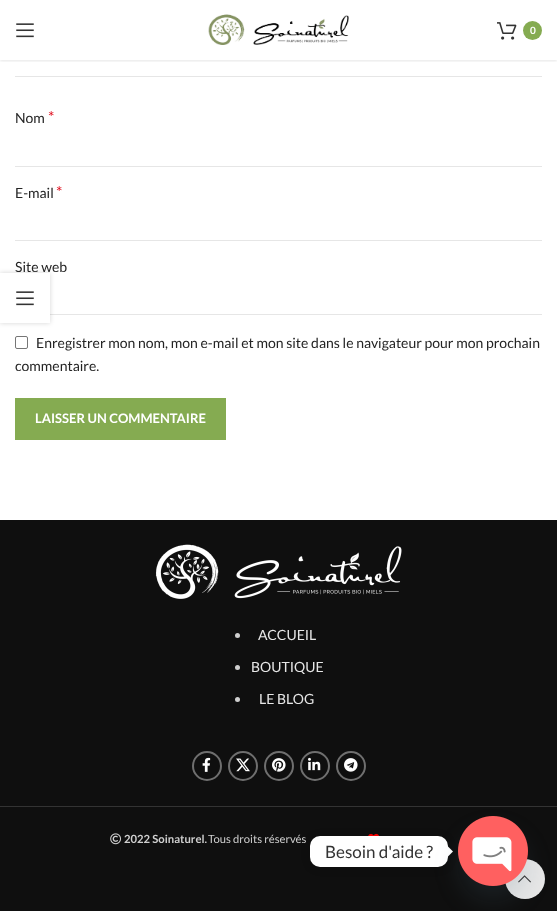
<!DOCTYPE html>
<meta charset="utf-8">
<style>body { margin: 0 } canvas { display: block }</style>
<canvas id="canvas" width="557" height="911"></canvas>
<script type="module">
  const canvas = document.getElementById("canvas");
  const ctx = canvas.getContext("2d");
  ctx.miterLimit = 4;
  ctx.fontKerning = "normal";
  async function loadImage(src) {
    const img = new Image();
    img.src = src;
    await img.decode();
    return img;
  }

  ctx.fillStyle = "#ffffff";
  ctx.fillRect(0, 0, 557, 911);
  ctx.save();
  ctx.beginPath();
  ctx.rect(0, 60, 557, 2);
  ctx.clip();
  ctx.fillStyle = "rgba(0, 0, 0, 0.1)";
  ctx.filter = "blur(1.5px)";
  ctx.beginPath();
  ctx.rect(0, 1, 557, 60);
  ctx.fill();
  ctx.filter = "none";
  ctx.restore();
  ctx.drawImage(await loadImage("img1.png"), 16, 23, 18, 15);
  ctx.drawImage(await loadImage("img2.png"), 208, 14, 141, 31);
  ctx.drawImage(await loadImage("img3.png"), 497, 22, 20, 18);
  ctx.fillStyle = "#85ab51";
  ctx.beginPath();
  ctx.arc(532.5, 30.5, 9.5, 0, Math.PI * 2);
  ctx.fill();
  ctx.font = "bold 10px Lato";
  ctx.fillStyle = "#ffffff";
  ctx.fillText("0", 530, 34);
  ctx.fillStyle = "#e6e6e6";
  ctx.fillRect(15, 76, 527, 1);
  ctx.font = "14px Lato";
  ctx.fillStyle = "#242424";
  ctx.fillText("Nom", 15, 123);
  ctx.font = "16px Lato";
  ctx.fillStyle = "#e01020";
  ctx.fillText("*", 48, 123);
  ctx.fillStyle = "#e6e6e6";
  ctx.fillRect(15, 166, 527, 1);
  ctx.font = "14px Lato";
  ctx.fillStyle = "#242424";
  ctx.fillText("E-mail", 15, 198);
  ctx.font = "16px Lato";
  ctx.fillStyle = "#e01020";
  ctx.fillText("*", 56, 198);
  ctx.fillStyle = "#e6e6e6";
  ctx.fillRect(15, 240, 527, 1);
  ctx.font = "14px Lato";
  ctx.fillStyle = "#242424";
  ctx.fillText("Site web", 15, 272);
  ctx.fillStyle = "#e6e6e6";
  ctx.fillRect(50, 314, 492, 1);
  ctx.beginPath();
  ctx.roundRect(15.5, 336.5, 12, 12, 1.5);
  ctx.strokeStyle = "#767676";
  ctx.stroke();
  ctx.fillStyle = "#242424";
  ctx.fillText("Enregistrer mon nom, mon e-mail et mon site dans le navigateur pour mon prochain", 36, 348);
  ctx.fillText("commentaire.", 15, 371);
  ctx.fillStyle = "#85ab51";
  ctx.fillRect(15, 398, 211, 42);
  ctx.font = "bold 13px Lato";
  ctx.fillStyle = "#ffffff";
  ctx.fillText("LAISSER UN COMMENTAIRE", 35, 423);
  ctx.fillStyle = "#0f0f0f";
  ctx.fillRect(0, 520, 557, 391);
  ctx.drawImage(await loadImage("img4.png"), 155, 544, 247, 55);
  ctx.fillStyle = "#cfcfcf";
  ctx.beginPath();
  ctx.arc(237.5, 635.5, 2.5, 0, Math.PI * 2);
  ctx.fill();
  ctx.font = "14px Lato";
  ctx.fillStyle = "#e7e7e7";
  ctx.fillText("ACCUEIL", 258, 640);
  ctx.fillStyle = "#cfcfcf";
  ctx.beginPath();
  ctx.arc(237.5, 667.5, 2.5, 0, Math.PI * 2);
  ctx.fill();
  ctx.fillStyle = "#e7e7e7";
  ctx.fillText("BOUTIQUE", 251, 672);
  ctx.fillStyle = "#cfcfcf";
  ctx.beginPath();
  ctx.arc(237.5, 699.5, 2.5, 0, Math.PI * 2);
  ctx.fill();
  ctx.fillStyle = "#e7e7e7";
  ctx.fillText("LE BLOG", 259, 704);
  ctx.beginPath();
  ctx.arc(207, 766, 14, 0, Math.PI * 2);
  ctx.strokeStyle = "#6f6f6f";
  ctx.lineWidth = 2;
  ctx.stroke();
  ctx.drawImage(await loadImage("img5.png"), 202, 757, 9, 15);
  ctx.beginPath();
  ctx.arc(243, 766, 14, 0, Math.PI * 2);
  ctx.stroke();
  ctx.drawImage(await loadImage("img6.png"), 236, 758, 14, 14);
  ctx.beginPath();
  ctx.arc(279, 766, 14, 0, Math.PI * 2);
  ctx.stroke();
  ctx.drawImage(await loadImage("img7.png"), 272, 758, 14, 14);
  ctx.beginPath();
  ctx.arc(315, 766, 14, 0, Math.PI * 2);
  ctx.stroke();
  ctx.drawImage(await loadImage("img8.png"), 308, 757, 13, 14);
  ctx.beginPath();
  ctx.arc(351, 766, 14, 0, Math.PI * 2);
  ctx.stroke();
  ctx.drawImage(await loadImage("img9.png"), 344, 758, 14, 14);
  ctx.fillStyle = "#333333";
  ctx.fillRect(0, 806, 557, 1);
  ctx.drawImage(await loadImage("img10.png"), 110, 833, 11, 12);
  ctx.font = "bold 11.25px Lato";
  ctx.fillStyle = "#cfcfcf";
  ctx.fillText("2022 Soinaturel.", 124, 843);
  ctx.font = "11.25px Lato";
  ctx.fillText("Tous droits réservés", 208, 843);
  ctx.drawImage(await loadImage("img11.png"), 368, 833, 11, 3);
  ctx.save();
  ctx.beginPath();
  ctx.moveTo(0, 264);
  ctx.lineTo(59, 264);
  ctx.lineTo(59, 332);
  ctx.lineTo(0, 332);
  ctx.closePath();
  ctx.moveTo(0, 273);
  ctx.lineTo(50, 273);
  ctx.lineTo(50, 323);
  ctx.lineTo(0, 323);
  ctx.closePath();
  ctx.clip("evenodd");
  ctx.fillStyle = "rgba(0, 0, 0, 0.17)";
  ctx.filter = "blur(2.5px)";
  ctx.beginPath();
  ctx.rect(0, 273, 50, 50);
  ctx.fill();
  ctx.filter = "none";
  ctx.restore();
  ctx.drawImage(await loadImage("img1.png"), 16, 291, 18, 15);
  ctx.fillStyle = "rgba(0, 0, 0, 0.15)";
  ctx.filter = "blur(4px)";
  ctx.beginPath();
  ctx.roundRect(310, 837, 138, 31, 10);
  ctx.fill();
  ctx.filter = "none";
  ctx.fillStyle = "#ffffff";
  ctx.beginPath();
  ctx.roundRect(310, 836, 138, 31, 10);
  ctx.fill();
  ctx.font = "17px Lato";
  ctx.fillStyle = "#333333";
  ctx.fillText("Besoin d'aide ?", 325, 858);
  ctx.fillStyle = "#ffffff";
  ctx.beginPath();
  ctx.moveTo(448, 856.5);
  ctx.lineTo(448, 846.5);
  ctx.lineTo(453, 851.5);
  ctx.closePath();
  ctx.fill();
  ctx.fillStyle = "#e7e7e7";
  ctx.beginPath();
  ctx.arc(525, 879, 20, 0, Math.PI * 2);
  ctx.fill();
  ctx.drawImage(await loadImage("img13.png"), 518, 875, 13, 8);
  ctx.fillStyle = "rgba(73, 104, 126, 0.16)";
  ctx.filter = "blur(12px)";
  ctx.beginPath();
  ctx.roundRect(458, 832, 70, 70, 35);
  ctx.fill();
  ctx.filter = "none";
  ctx.drawImage(await loadImage("img12.png"), 458, 816, 70, 70);
</script>
